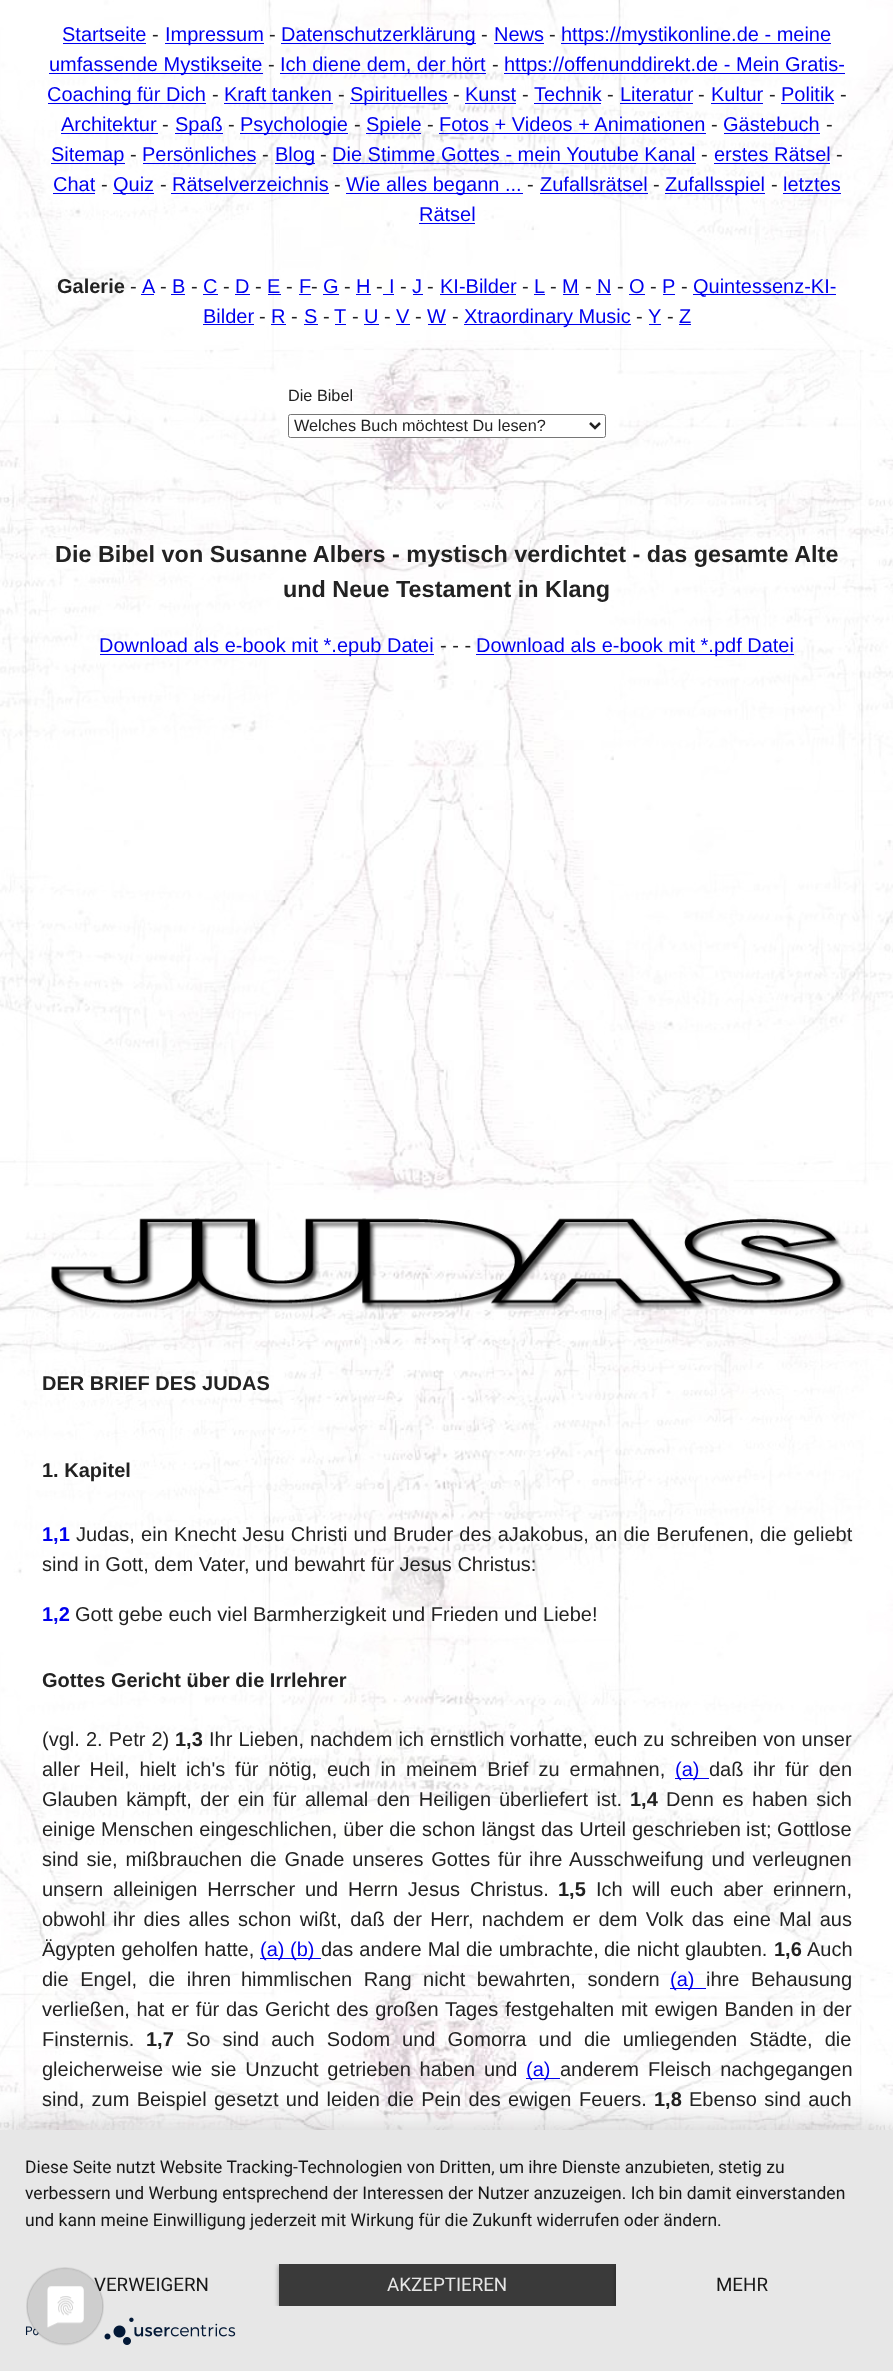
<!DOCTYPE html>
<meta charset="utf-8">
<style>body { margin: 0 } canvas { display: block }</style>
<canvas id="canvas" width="893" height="2371"></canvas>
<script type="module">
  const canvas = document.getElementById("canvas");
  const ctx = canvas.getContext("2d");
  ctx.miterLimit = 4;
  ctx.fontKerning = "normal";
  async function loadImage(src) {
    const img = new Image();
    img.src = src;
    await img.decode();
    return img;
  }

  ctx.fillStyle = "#ffffff";
  ctx.fillRect(0, 0, 893, 2371);
  ctx.drawImage(await loadImage("img1.png"), 0, 0, 893, 2130);
  ctx.font = "20px Liberation Sans";
  ctx.fillStyle = "#0000ee";
  ctx.fillText("Startseite", 62, 41);
  ctx.fillRect(63, 43, 83, 1);
  ctx.fillStyle = "#222222";
  ctx.fillText("-", 152, 41);
  ctx.fillStyle = "#0000ee";
  ctx.fillRect(165, 43, 99, 1);
  ctx.fillText("Impressum", 165, 41);
  ctx.fillStyle = "#222222";
  ctx.fillText("-", 269, 41);
  ctx.fillStyle = "#0000ee";
  ctx.fillRect(281, 43, 195, 1);
  ctx.fillText("Datenschutzerklärung", 281, 41);
  ctx.fillStyle = "#222222";
  ctx.fillText("-", 481, 41);
  ctx.fillStyle = "#0000ee";
  ctx.fillText("News", 494, 41);
  ctx.fillRect(494, 43, 50, 1);
  ctx.fillStyle = "#222222";
  ctx.fillText("-", 549, 41);
  ctx.fillStyle = "#0000ee";
  ctx.fillRect(561, 43, 270, 1);
  ctx.fillText("https://mystikonline.de - meine", 561, 41);
  ctx.fillRect(49, 73, 214, 1);
  ctx.fillText("umfassende Mystikseite", 49, 71);
  ctx.fillStyle = "#222222";
  ctx.fillText("-", 268, 71);
  ctx.fillStyle = "#0000ee";
  ctx.fillRect(280, 73, 206, 1);
  ctx.fillText("Ich diene dem, der hört", 280, 71);
  ctx.fillStyle = "#222222";
  ctx.fillText("-", 492, 71);
  ctx.fillStyle = "#0000ee";
  ctx.fillRect(504, 73, 341, 1);
  ctx.fillText("https://offenunddirekt.de - Mein Gratis-", 504, 71);
  ctx.fillRect(48, 103, 158, 1);
  ctx.fillText("Coaching für Dich", 47, 101);
  ctx.fillStyle = "#222222";
  ctx.fillText("-", 212, 101);
  ctx.fillStyle = "#0000ee";
  ctx.fillText("Kraft tanken", 224, 101);
  ctx.fillRect(224, 103, 109, 1);
  ctx.fillStyle = "#222222";
  ctx.fillText("-", 338, 101);
  ctx.fillStyle = "#0000ee";
  ctx.fillRect(350, 103, 98, 1);
  ctx.fillText("Spirituelles", 350, 101);
  ctx.fillStyle = "#222222";
  ctx.fillText("-", 453, 101);
  ctx.fillStyle = "#0000ee";
  ctx.fillText("Kunst", 465, 101);
  ctx.fillRect(465, 103, 51, 1);
  ctx.fillStyle = "#222222";
  ctx.fillText("-", 522, 101);
  ctx.fillStyle = "#0000ee";
  ctx.fillText("Technik", 534, 101);
  ctx.fillRect(534, 103, 67, 1);
  ctx.fillStyle = "#222222";
  ctx.fillText("-", 607, 101);
  ctx.fillStyle = "#0000ee";
  ctx.fillText("Literatur", 620, 101);
  ctx.fillRect(620, 103, 73, 1);
  ctx.fillStyle = "#222222";
  ctx.fillText("-", 698, 101);
  ctx.fillStyle = "#0000ee";
  ctx.fillText("Kultur", 711, 101);
  ctx.fillRect(711, 103, 52, 1);
  ctx.fillStyle = "#222222";
  ctx.fillText("-", 769, 101);
  ctx.fillStyle = "#0000ee";
  ctx.fillText("Politik", 781, 101);
  ctx.fillRect(781, 103, 53, 1);
  ctx.fillStyle = "#222222";
  ctx.fillText("-", 840, 101);
  ctx.fillStyle = "#0000ee";
  ctx.fillText("Architektur", 61, 131);
  ctx.fillRect(61, 133, 97, 1);
  ctx.fillStyle = "#222222";
  ctx.fillText("-", 162, 131);
  ctx.fillStyle = "#0000ee";
  ctx.fillRect(175, 133, 48, 1);
  ctx.fillText("Spaß", 175, 131);
  ctx.fillStyle = "#222222";
  ctx.fillText("-", 228, 131);
  ctx.fillStyle = "#0000ee";
  ctx.fillRect(240, 133, 108, 1);
  ctx.fillText("Psychologie", 240, 131);
  ctx.fillStyle = "#222222";
  ctx.fillText("-", 354, 131);
  ctx.fillStyle = "#0000ee";
  ctx.fillRect(366, 133, 55, 1);
  ctx.fillText("Spiele", 366, 131);
  ctx.fillStyle = "#222222";
  ctx.fillText("-", 427, 131);
  ctx.fillStyle = "#0000ee";
  ctx.fillText("Fotos + Videos + Animationen", 439, 131);
  ctx.fillRect(439, 133, 267, 1);
  ctx.fillStyle = "#222222";
  ctx.fillText("-", 711, 131);
  ctx.fillStyle = "#0000ee";
  ctx.fillText("Gästebuch", 723, 131);
  ctx.fillRect(724, 133, 96, 1);
  ctx.fillStyle = "#222222";
  ctx.fillText("-", 826, 131);
  ctx.fillStyle = "#0000ee";
  ctx.fillRect(51, 163, 74, 1);
  ctx.fillText("Sitemap", 51, 161);
  ctx.fillStyle = "#222222";
  ctx.fillText("-", 130, 161);
  ctx.fillStyle = "#0000ee";
  ctx.fillText("Persönliches", 142, 161);
  ctx.fillRect(143, 163, 113, 1);
  ctx.fillStyle = "#222222";
  ctx.fillText("-", 262, 161);
  ctx.fillStyle = "#0000ee";
  ctx.fillRect(275, 163, 40, 1);
  ctx.fillText("Blog", 275, 161);
  ctx.fillStyle = "#222222";
  ctx.fillText("-", 320, 161);
  ctx.fillStyle = "#0000ee";
  ctx.fillText("Die Stimme Gottes - mein Youtube Kanal", 332, 161);
  ctx.fillRect(333, 163, 363, 1);
  ctx.fillStyle = "#222222";
  ctx.fillText("-", 701, 161);
  ctx.fillStyle = "#0000ee";
  ctx.fillText("erstes Rätsel", 714, 161);
  ctx.fillRect(714, 163, 116, 1);
  ctx.fillStyle = "#222222";
  ctx.fillText("-", 836, 161);
  ctx.fillStyle = "#0000ee";
  ctx.fillText("Chat", 53, 191);
  ctx.fillRect(53, 193, 42, 1);
  ctx.fillStyle = "#222222";
  ctx.fillText("-", 101, 191);
  ctx.fillStyle = "#0000ee";
  ctx.fillRect(113, 193, 41, 1);
  ctx.fillText("Quiz", 113, 191);
  ctx.fillStyle = "#222222";
  ctx.fillText("-", 160, 191);
  ctx.fillStyle = "#0000ee";
  ctx.fillText("Rätselverzeichnis", 172, 191);
  ctx.fillRect(171, 193, 158, 1);
  ctx.fillStyle = "#222222";
  ctx.fillText("-", 334, 191);
  ctx.fillStyle = "#0000ee";
  ctx.fillRect(346, 193, 177, 1);
  ctx.fillText("Wie alles begann ...", 346, 191);
  ctx.fillStyle = "#222222";
  ctx.fillText("-", 527, 191);
  ctx.fillStyle = "#0000ee";
  ctx.fillText("Zufallsrätsel", 540, 191);
  ctx.fillRect(540, 193, 108, 1);
  ctx.fillStyle = "#222222";
  ctx.fillText("-", 653, 191);
  ctx.fillStyle = "#0000ee";
  ctx.fillRect(665, 193, 100, 1);
  ctx.fillText("Zufallsspiel", 665, 191);
  ctx.fillStyle = "#222222";
  ctx.fillText("-", 771, 191);
  ctx.fillStyle = "#0000ee";
  ctx.fillText("letztes", 783, 191);
  ctx.fillRect(783, 193, 58, 1);
  ctx.fillText("Rätsel", 419, 221);
  ctx.fillRect(419, 223, 56, 1);
  ctx.font = "bold 20px Liberation Sans";
  ctx.fillStyle = "#222222";
  ctx.fillText("Galerie", 57, 293);
  ctx.font = "20px Liberation Sans";
  ctx.fillText("-", 130, 293);
  ctx.fillStyle = "#0000ee";
  ctx.fillText("A", 142, 293);
  ctx.fillRect(141, 294, 13, 1);
  ctx.fillStyle = "#222222";
  ctx.fillText("-", 160, 293);
  ctx.fillStyle = "#0000ee";
  ctx.fillText("B", 172, 293);
  ctx.fillRect(171, 294, 14, 1);
  ctx.fillStyle = "#222222";
  ctx.fillText("-", 191, 293);
  ctx.fillStyle = "#0000ee";
  ctx.fillText("C", 203, 293);
  ctx.fillRect(203, 294, 15, 1);
  ctx.fillStyle = "#222222";
  ctx.fillText("-", 223, 293);
  ctx.fillStyle = "#0000ee";
  ctx.fillText("D", 235, 293);
  ctx.fillRect(235, 294, 15, 1);
  ctx.fillStyle = "#222222";
  ctx.fillText("-", 255, 293);
  ctx.fillStyle = "#0000ee";
  ctx.fillText("E", 267, 293);
  ctx.fillRect(268, 294, 13, 1);
  ctx.fillStyle = "#222222";
  ctx.fillText("-", 286, 293);
  ctx.fillStyle = "#0000ee";
  ctx.fillText("F", 299, 293);
  ctx.fillStyle = "#222222";
  ctx.fillText("-", 311, 293);
  ctx.fillStyle = "#0000ee";
  ctx.fillRect(299, 294, 12, 1);
  ctx.fillText("G", 323, 293);
  ctx.fillRect(323, 294, 16, 1);
  ctx.fillStyle = "#222222";
  ctx.fillText("-", 344, 293);
  ctx.fillStyle = "#0000ee";
  ctx.fillText("H", 356, 293);
  ctx.fillRect(356, 294, 15, 1);
  ctx.fillStyle = "#222222";
  ctx.fillText("-", 376, 293);
  ctx.fillStyle = "#0000ee";
  ctx.fillRect(383, 294, 11, 1);
  ctx.fillText("I", 389, 293);
  ctx.fillStyle = "#222222";
  ctx.fillText("-", 400, 293);
  ctx.fillStyle = "#0000ee";
  ctx.fillText("J", 412, 293);
  ctx.fillRect(413, 294, 10, 1);
  ctx.fillStyle = "#222222";
  ctx.fillText("-", 427, 293);
  ctx.fillStyle = "#0000ee";
  ctx.fillText("KI-Bilder", 440, 293);
  ctx.fillRect(440, 294, 76, 1);
  ctx.fillStyle = "#222222";
  ctx.fillText("-", 522, 293);
  ctx.fillStyle = "#0000ee";
  ctx.fillText("L", 534, 293);
  ctx.fillRect(534, 294, 11, 1);
  ctx.fillStyle = "#222222";
  ctx.fillText("-", 550, 293);
  ctx.fillStyle = "#0000ee";
  ctx.fillText("M", 562, 293);
  ctx.fillRect(563, 294, 16, 1);
  ctx.fillStyle = "#222222";
  ctx.fillText("-", 585, 293);
  ctx.fillStyle = "#0000ee";
  ctx.fillText("N", 597, 293);
  ctx.fillRect(596, 294, 15, 1);
  ctx.fillStyle = "#222222";
  ctx.fillText("-", 617, 293);
  ctx.fillStyle = "#0000ee";
  ctx.fillText("O", 629, 293);
  ctx.fillRect(629, 294, 16, 1);
  ctx.fillStyle = "#222222";
  ctx.fillText("-", 650, 293);
  ctx.fillStyle = "#0000ee";
  ctx.fillText("P", 662, 293);
  ctx.fillRect(663, 294, 12, 1);
  ctx.fillStyle = "#222222";
  ctx.fillText("-", 681, 293);
  ctx.fillStyle = "#0000ee";
  ctx.fillRect(693, 294, 143, 1);
  ctx.fillText("Quintessenz-KI-", 693, 293);
  ctx.fillText("Bilder", 203, 323);
  ctx.fillRect(203, 324, 51, 1);
  ctx.fillStyle = "#222222";
  ctx.fillText("-", 259, 323);
  ctx.fillStyle = "#0000ee";
  ctx.fillText("R", 271, 323);
  ctx.fillRect(271, 324, 15, 1);
  ctx.fillStyle = "#222222";
  ctx.fillText("-", 291, 323);
  ctx.fillStyle = "#0000ee";
  ctx.fillText("S", 304, 323);
  ctx.fillRect(304, 324, 14, 1);
  ctx.fillStyle = "#222222";
  ctx.fillText("-", 323, 323);
  ctx.fillStyle = "#0000ee";
  ctx.fillText("T", 334, 323);
  ctx.fillRect(335, 324, 11, 1);
  ctx.fillStyle = "#222222";
  ctx.fillText("-", 352, 323);
  ctx.fillStyle = "#0000ee";
  ctx.fillText("U", 364, 323);
  ctx.fillRect(364, 324, 15, 1);
  ctx.fillStyle = "#222222";
  ctx.fillText("-", 384, 323);
  ctx.fillStyle = "#0000ee";
  ctx.fillText("V", 396, 323);
  ctx.fillRect(396, 324, 14, 1);
  ctx.fillStyle = "#222222";
  ctx.fillText("-", 415, 323);
  ctx.fillStyle = "#0000ee";
  ctx.fillText("W", 427, 323);
  ctx.fillRect(428, 324, 18, 1);
  ctx.fillStyle = "#222222";
  ctx.fillText("-", 452, 323);
  ctx.fillStyle = "#0000ee";
  ctx.fillRect(464, 324, 167, 1);
  ctx.fillText("Xtraordinary Music", 464, 323);
  ctx.fillStyle = "#222222";
  ctx.fillText("-", 636, 323);
  ctx.fillStyle = "#0000ee";
  ctx.fillText("Y", 648, 323);
  ctx.fillRect(649, 324, 12, 1);
  ctx.fillStyle = "#222222";
  ctx.fillText("-", 667, 323);
  ctx.fillStyle = "#0000ee";
  ctx.fillText("Z", 679, 323);
  ctx.fillRect(679, 324, 12, 1);
  ctx.font = "16.25px Liberation Sans";
  ctx.fillStyle = "#222222";
  ctx.fillText("Die Bibel", 288, 401);
  ctx.fillStyle = "#ffffff";
  ctx.beginPath();
  ctx.roundRect(288.5, 414.5, 317, 23, 2);
  ctx.fill();
  ctx.strokeStyle = "#767676";
  ctx.stroke();
  ctx.beginPath();
  ctx.moveTo(590, 423);
  ctx.lineTo(595, 428);
  ctx.lineTo(600, 423);
  ctx.strokeStyle = "#222222";
  ctx.lineWidth = 2.5;
  ctx.stroke();
  ctx.fillStyle = "#222222";
  ctx.fillText("Welches Buch möchtest Du lesen?", 294, 431);
  ctx.font = "bold 23.4px Liberation Sans";
  ctx.fillText("Die Bibel von Susanne Albers - mystisch verdichtet - das gesamte Alte", 55, 562);
  ctx.fillText("und Neue Testament in Klang", 283, 597);
  ctx.fillStyle = "#0000ee";
  ctx.fillRect(100, 654, 334, 1);
  ctx.font = "20px Liberation Sans";
  ctx.fillText("Download als e-book mit *.epub Datei", 99, 652);
  ctx.fillStyle = "#222222";
  ctx.fillText("- - -", 440, 652);
  ctx.fillStyle = "#0000ee";
  ctx.fillRect(476, 654, 318, 1);
  ctx.fillText("Download als e-book mit *.pdf Datei", 476, 652);
  ctx.drawImage(await loadImage("img2.png"), 51, 1218, 796, 92);
  ctx.font = "bold 20px Liberation Sans";
  ctx.fillStyle = "#222222";
  ctx.fillText("DER BRIEF DES JUDAS", 42, 1390);
  ctx.fillText("1. Kapitel", 42, 1477);
  ctx.fillStyle = "#0000ee";
  ctx.fillText("1,1", 42, 1541);
  ctx.wordSpacing = "0.6px";
  ctx.font = "20px Liberation Sans";
  ctx.fillStyle = "#222222";
  ctx.fillText("Judas, ein Knecht Jesu Christi und Bruder des aJakobus, an die Berufenen,", 76, 1541);
  ctx.wordSpacing = "1px";
  ctx.fillText("die geliebt", 760, 1541);
  ctx.wordSpacing = "0px";
  ctx.fillText("sind in Gott, dem Vater, und bewahrt für Jesus Christus:", 42, 1571);
  ctx.font = "bold 20px Liberation Sans";
  ctx.fillStyle = "#0000ee";
  ctx.fillText("1,2", 42, 1621);
  ctx.font = "20px Liberation Sans";
  ctx.fillStyle = "#222222";
  ctx.fillText("Gott gebe euch viel Barmherzigkeit und Frieden und Liebe!", 75, 1621);
  ctx.font = "bold 20px Liberation Sans";
  ctx.fillText("Gottes Gericht über die Irrlehrer", 42, 1687);
  ctx.font = "20px Liberation Sans";
  ctx.fillText("(vgl.", 42, 1746);
  ctx.wordSpacing = "0.5px";
  ctx.fillText("2. Petr 2)", 86, 1746);
  ctx.wordSpacing = "0px";
  ctx.font = "bold 20px Liberation Sans";
  ctx.fillText("1,3", 175, 1746);
  ctx.wordSpacing = "0.5px";
  ctx.font = "20px Liberation Sans";
  ctx.fillText("Ihr Lieben, nachdem ich ernstlich", 209, 1746);
  ctx.fillText("vorhatte, euch zu schreiben von unser", 510, 1746);
  ctx.wordSpacing = "4.25px";
  ctx.fillText("aller Heil, hielt ich's für nötig,", 42, 1776);
  ctx.wordSpacing = "4.5px";
  ctx.fillText("euch in meinem Brief zu ermahnen,", 327, 1776);
  ctx.fillStyle = "#0000ee";
  ctx.fillRect(675, 1778, 34, 1);
  ctx.wordSpacing = "0px";
  ctx.fillText("(a)", 675, 1776);
  ctx.fillStyle = "#222222";
  ctx.fillText("daß", 709, 1776);
  ctx.wordSpacing = "4.5px";
  ctx.fillText("ihr für den", 753, 1776);
  ctx.wordSpacing = "3px";
  ctx.fillText("Glauben kämpft, der ein für allemal den Heiligen", 42, 1806);
  ctx.fillText("überliefert ist.", 499, 1806);
  ctx.wordSpacing = "0px";
  ctx.font = "bold 20px Liberation Sans";
  ctx.fillText("1,4", 630, 1806);
  ctx.wordSpacing = "3px";
  ctx.font = "20px Liberation Sans";
  ctx.fillText("Denn es haben sich", 666, 1806);
  ctx.wordSpacing = "0px";
  ctx.fillText("einige", 42, 1836);
  ctx.wordSpacing = "0.5px";
  ctx.fillText("Menschen eingeschlichen, über die schon längst das Urteil geschrieben", 101, 1836);
  ctx.wordSpacing = "0px";
  ctx.fillText("ist; Gottlose", 746, 1836);
  ctx.wordSpacing = "2.25px";
  ctx.fillText("sind sie, mißbrauchen die Gnade unseres Gottes für", 42, 1866);
  ctx.fillText("ihre Ausschweifung und verleugnen", 529, 1866);
  ctx.wordSpacing = "4.25px";
  ctx.fillText("unsern alleinigen Herrscher und Herrn Jesus", 42, 1896);
  ctx.wordSpacing = "0px";
  ctx.fillText("Christus.", 470, 1896);
  ctx.font = "bold 20px Liberation Sans";
  ctx.fillText("1,5", 558, 1896);
  ctx.wordSpacing = "4.25px";
  ctx.font = "20px Liberation Sans";
  ctx.fillText("Ich will euch aber erinnern,", 596, 1896);
  ctx.wordSpacing = "0px";
  ctx.fillText("obwohl", 42, 1926);
  ctx.wordSpacing = "2.75px";
  ctx.fillText("ihr dies alles schon wißt, daß der Herr, nachdem er dem Volk das", 113, 1926);
  ctx.fillText("eine Mal aus", 733, 1926);
  ctx.wordSpacing = "0.5px";
  ctx.fillText("Ägypten geholfen hatte,", 42, 1956);
  ctx.fillStyle = "#0000ee";
  ctx.fillRect(260, 1958, 61, 1);
  ctx.wordSpacing = "0px";
  ctx.fillText("(a)", 260, 1956);
  ctx.fillText("(b)", 290, 1956);
  ctx.wordSpacing = "0.5px";
  ctx.fillStyle = "#222222";
  ctx.fillText("das andere Mal die umbrachte,", 321, 1956);
  ctx.fillText("die nicht glaubten.", 604, 1956);
  ctx.wordSpacing = "0px";
  ctx.font = "bold 20px Liberation Sans";
  ctx.fillText("1,6", 774, 1956);
  ctx.font = "20px Liberation Sans";
  ctx.fillText("Auch", 807, 1956);
  ctx.wordSpacing = "6px";
  ctx.fillText("die Engel, die ihren", 42, 1986);
  ctx.fillText("himmlischen Rang nicht bewahrten, sondern", 241, 1986);
  ctx.fillStyle = "#0000ee";
  ctx.fillRect(670, 1988, 36, 1);
  ctx.wordSpacing = "0px";
  ctx.fillText("(a)", 670, 1986);
  ctx.wordSpacing = "6px";
  ctx.fillStyle = "#222222";
  ctx.fillText("ihre Behausung", 706, 1986);
  ctx.wordSpacing = "1.25px";
  ctx.fillText("verließen, hat er für das Gericht des großen", 42, 2016);
  ctx.fillText("Tages festgehalten mit ewigen Banden in der", 445, 2016);
  ctx.wordSpacing = "0px";
  ctx.fillText("Finsternis.", 42, 2046);
  ctx.font = "bold 20px Liberation Sans";
  ctx.fillText("1,7", 146, 2046);
  ctx.wordSpacing = "6.5px";
  ctx.font = "20px Liberation Sans";
  ctx.fillText("So sind auch Sodom und Gomorra und die umliegenden Städte, die", 186, 2046);
  ctx.wordSpacing = "0px";
  ctx.fillText("gleicherweise", 42, 2076);
  ctx.wordSpacing = "3.25px";
  ctx.fillText("wie sie Unzucht getrieben haben und", 172, 2076);
  ctx.fillStyle = "#0000ee";
  ctx.fillRect(526, 2078, 34, 1);
  ctx.wordSpacing = "0px";
  ctx.fillText("(a)", 526, 2076);
  ctx.fillStyle = "#222222";
  ctx.fillText("anderem", 560, 2076);
  ctx.wordSpacing = "3.25px";
  ctx.fillText("Fleisch nachgegangen", 648, 2076);
  ctx.wordSpacing = "1.75px";
  ctx.fillText("sind, zum Beispiel gesetzt und leiden die Pein des ewigen", 42, 2106);
  ctx.wordSpacing = "0px";
  ctx.fillText("Feuers.", 579, 2106);
  ctx.font = "bold 20px Liberation Sans";
  ctx.fillText("1,8", 654, 2106);
  ctx.wordSpacing = "1.75px";
  ctx.font = "20px Liberation Sans";
  ctx.fillText("Ebenso sind auch", 689, 2106);
  ctx.fillStyle = "rgba(0, 0, 0, 0.3)";
  ctx.filter = "blur(22.5px)";
  ctx.beginPath();
  ctx.rect(0, 2138, 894, 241);
  ctx.fill();
  ctx.filter = "none";
  ctx.fillStyle = "#e7e7e7";
  ctx.fillRect(0, 2130, 893, 241);
  ctx.wordSpacing = "0px";
  ctx.font = "17.5px Roboto";
  ctx.fillStyle = "#161616";
  ctx.fillText("Diese Seite nutzt Website Tracking-Technologien von Dritten, um ihre Dienste anzubieten, stetig zu", 25, 2173);
  ctx.fillText("verbessern und Werbung entsprechend der Interessen der Nutzer anzuzeigen. Ich bin damit einverstanden", 25, 2199);
  ctx.fillText("und kann meine Einwilligung jederzeit mit Wirkung für die Zukunft widerrufen oder ändern.", 25, 2226);
  ctx.font = "18.75px Roboto";
  ctx.fillText("VERWEIGERN", 94, 2291);
  ctx.save();
  ctx.beginPath();
  ctx.rect(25, 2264, 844, 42);
  ctx.clip();
  ctx.fillStyle = "rgba(0, 0, 0, 0.4)";
  ctx.filter = "blur(2.5px)";
  ctx.beginPath();
  ctx.rect(279, 2265, 337, 43);
  ctx.fill();
  ctx.filter = "none";
  ctx.restore();
  ctx.fillStyle = "#3a3a3a";
  ctx.fillRect(279, 2264, 337, 42);
  ctx.fillStyle = "#e6e6e6";
  ctx.fillText("AKZEPTIEREN", 387, 2291);
  ctx.save();
  ctx.beginPath();
  ctx.rect(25, 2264, 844, 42);
  ctx.clip();
  ctx.fillStyle = "rgba(0, 0, 0, 0.4)";
  ctx.filter = "blur(2.5px)";
  ctx.beginPath();
  ctx.rect(616, 2265, 253, 43);
  ctx.fill();
  ctx.filter = "none";
  ctx.restore();
  ctx.fillStyle = "#e7e7e7";
  ctx.fillRect(616, 2264, 253, 42);
  ctx.fillStyle = "#161616";
  ctx.fillText("MEHR", 716, 2291);
  ctx.font = "12px Roboto";
  ctx.fillStyle = "#021836";
  ctx.fillText("Po", 25, 2335);
  ctx.drawImage(await loadImage("img3.png"), 104, 2317, 132, 28);
  ctx.drawImage(await loadImage("img4.png"), 26, 2267, 78, 79);
</script>
